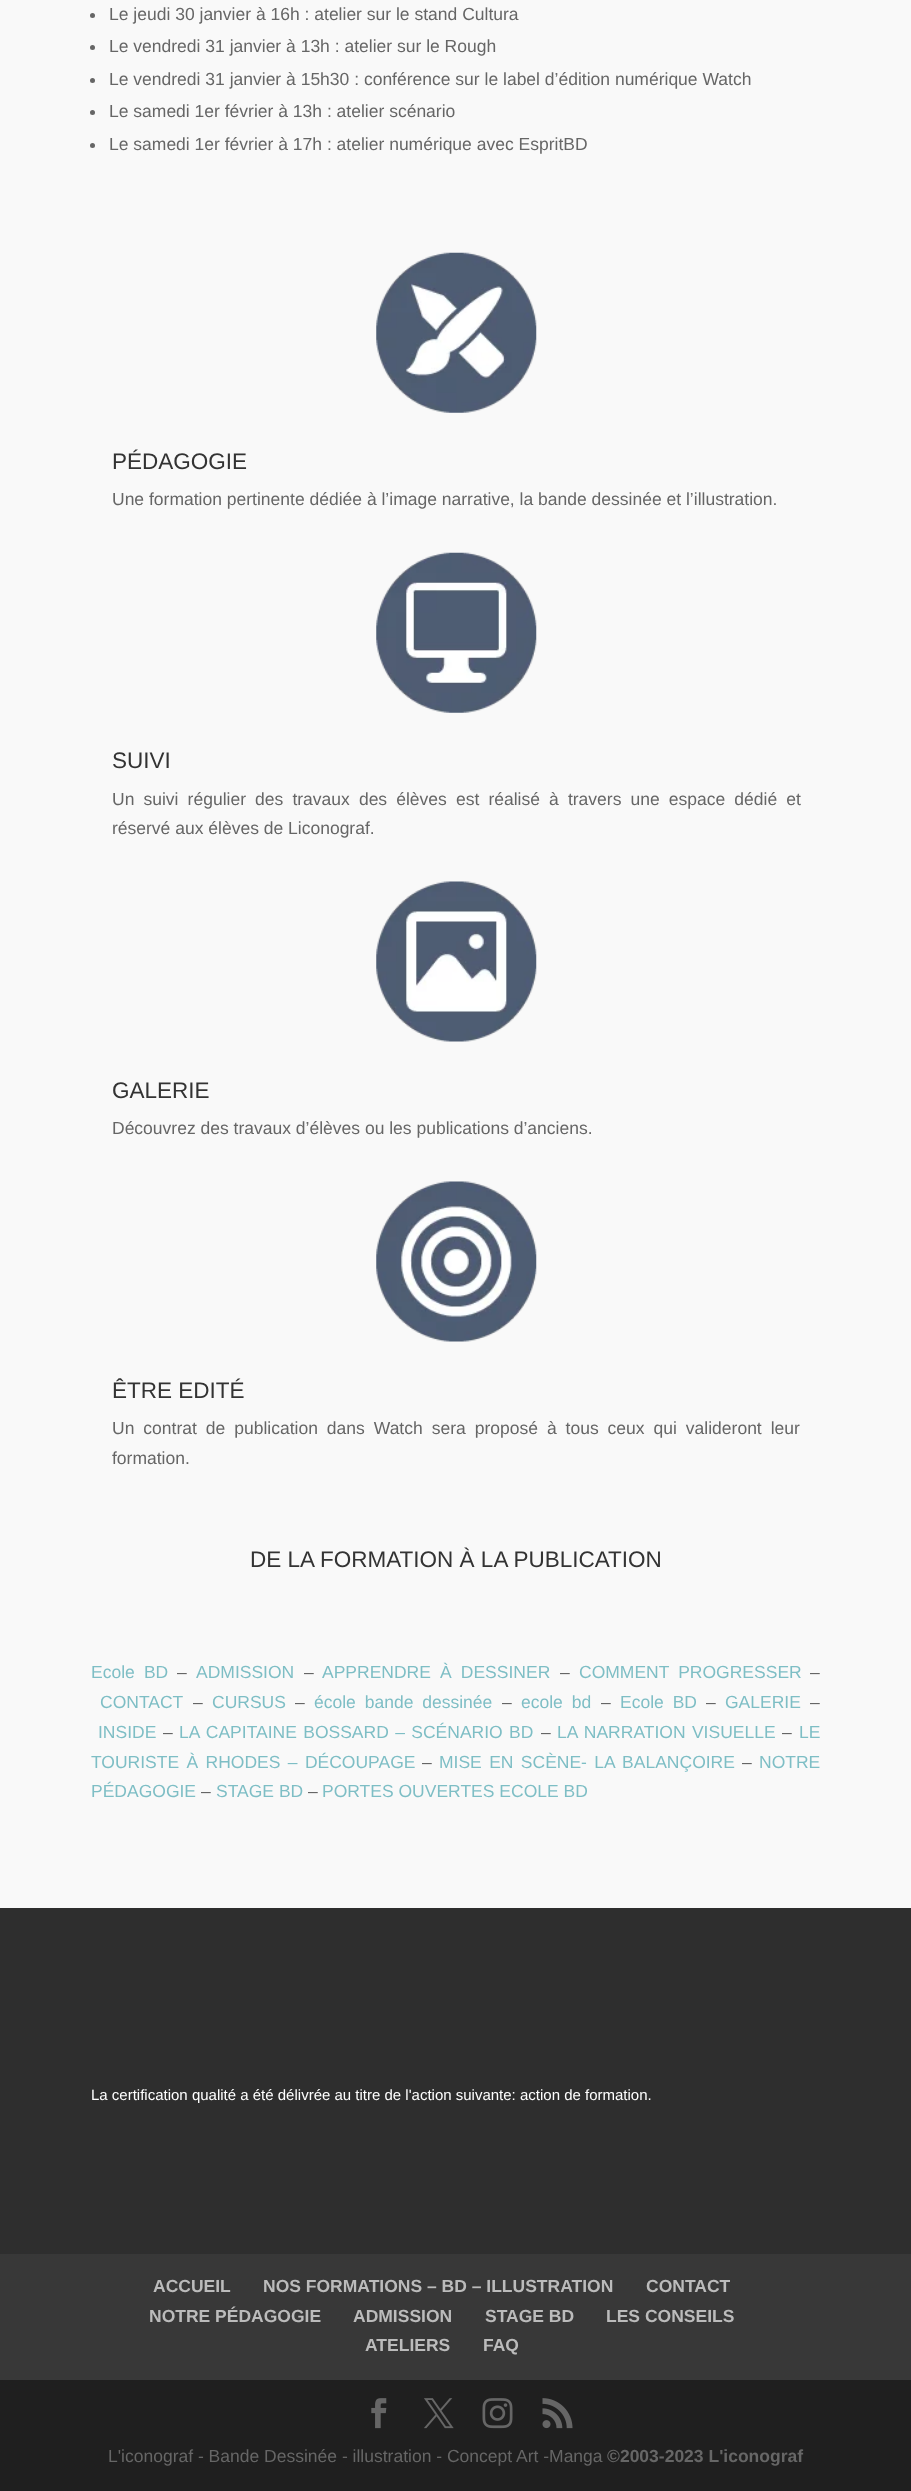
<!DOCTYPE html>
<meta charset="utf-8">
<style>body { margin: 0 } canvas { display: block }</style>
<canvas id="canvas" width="911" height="2491"></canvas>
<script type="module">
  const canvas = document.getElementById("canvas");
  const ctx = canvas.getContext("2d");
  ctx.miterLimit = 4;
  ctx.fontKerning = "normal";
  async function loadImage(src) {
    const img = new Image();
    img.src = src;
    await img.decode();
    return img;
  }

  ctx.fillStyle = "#2e2e2e";
  ctx.fillRect(0, 0, 911, 2491);
  ctx.fillStyle = "#f9f9f9";
  ctx.fillRect(0, 0, 911, 1908);
  ctx.fillStyle = "#666666";
  ctx.beginPath();
  ctx.arc(92.5, 15.5, 2.5, 0, Math.PI * 2);
  ctx.fill();
  ctx.font = "17.5px Liberation Sans";
  ctx.fillText("Le jeudi 30 janvier à 16h : atelier sur le stand Cultura", 109, 20);
  ctx.beginPath();
  ctx.arc(92.5, 47.5, 2.5, 0, Math.PI * 2);
  ctx.fill();
  ctx.fillText("Le vendredi 31 janvier à 13h : atelier sur le Rough", 109, 52);
  ctx.beginPath();
  ctx.arc(92.5, 80.5, 2.5, 0, Math.PI * 2);
  ctx.fill();
  ctx.fillText("Le vendredi 31 janvier à 15h30 : conférence sur le label d’édition numérique Watch", 109, 85);
  ctx.beginPath();
  ctx.arc(92.5, 112.5, 2.5, 0, Math.PI * 2);
  ctx.fill();
  ctx.fillText("Le samedi 1er février à 13h : atelier scénario", 109, 117);
  ctx.beginPath();
  ctx.arc(92.5, 145.5, 2.5, 0, Math.PI * 2);
  ctx.fill();
  ctx.fillText("Le samedi 1er février à 17h : atelier numérique avec EspritBD", 109, 150);
  ctx.drawImage(await loadImage("img1.png"), 376, 252, 161, 161);
  ctx.font = "22.5px Liberation Sans";
  ctx.fillStyle = "#333333";
  ctx.fillText("PÉDAGOGIE", 112, 469);
  ctx.font = "17.5px Liberation Sans";
  ctx.fillStyle = "#666666";
  ctx.fillText("Une formation pertinente dédiée à l’image narrative, la bande dessinée et l’illustration.", 112, 505);
  ctx.drawImage(await loadImage("img2.png"), 376, 552, 161, 161);
  ctx.font = "22.5px Liberation Sans";
  ctx.fillStyle = "#333333";
  ctx.fillText("SUIVI", 112, 768);
  ctx.wordSpacing = "4.25px";
  ctx.font = "17.5px Liberation Sans";
  ctx.fillStyle = "#666666";
  ctx.fillText("Un suivi régulier des travaux des élèves est réalisé à travers une espace dédié et", 112, 805);
  ctx.wordSpacing = "0px";
  ctx.fillText("réservé aux élèves de Liconograf.", 112, 834);
  ctx.drawImage(await loadImage("img3.png"), 376, 881, 161, 161);
  ctx.font = "22.5px Liberation Sans";
  ctx.fillStyle = "#333333";
  ctx.fillText("GALERIE", 112, 1098);
  ctx.font = "17.5px Liberation Sans";
  ctx.fillStyle = "#666666";
  ctx.fillText("Découvrez des travaux d’élèves ou les publications d’anciens.", 112, 1134);
  ctx.drawImage(await loadImage("img4.png"), 376, 1181, 161, 161);
  ctx.font = "22.5px Liberation Sans";
  ctx.fillStyle = "#333333";
  ctx.fillText("ÊTRE EDITÉ", 112, 1398);
  ctx.wordSpacing = "4.1px";
  ctx.font = "17.5px Liberation Sans";
  ctx.fillStyle = "#666666";
  ctx.fillText("Un contrat de publication dans Watch sera proposé à tous ceux qui valideront leur", 112, 1434);
  ctx.wordSpacing = "0px";
  ctx.fillText("formation.", 112, 1464);
  ctx.font = "22.5px Liberation Sans";
  ctx.fillStyle = "#333333";
  ctx.fillText("DE LA FORMATION À LA PUBLICATION", 250, 1567);
  ctx.wordSpacing = "4.25px";
  ctx.font = "17.5px Liberation Sans";
  ctx.fillStyle = "#7ebec5";
  ctx.fillText("Ecole BD", 91, 1678);
  ctx.wordSpacing = "0px";
  ctx.fillStyle = "#666666";
  ctx.fillText("–", 177, 1678);
  ctx.fillStyle = "#7ebec5";
  ctx.fillText("ADMISSION", 196, 1678);
  ctx.fillStyle = "#666666";
  ctx.fillText("–", 304, 1678);
  ctx.wordSpacing = "4.25px";
  ctx.fillStyle = "#7ebec5";
  ctx.fillText("APPRENDRE À DESSINER", 322, 1678);
  ctx.wordSpacing = "0px";
  ctx.fillStyle = "#666666";
  ctx.fillText("–", 560, 1678);
  ctx.wordSpacing = "4.25px";
  ctx.fillStyle = "#7ebec5";
  ctx.fillText("COMMENT PROGRESSER", 579, 1678);
  ctx.wordSpacing = "0px";
  ctx.fillStyle = "#666666";
  ctx.fillText("–", 810, 1678);
  ctx.fillStyle = "#7ebec5";
  ctx.fillText("CONTACT", 100, 1708);
  ctx.fillStyle = "#666666";
  ctx.fillText("–", 193, 1708);
  ctx.fillStyle = "#7ebec5";
  ctx.fillText("CURSUS", 212, 1708);
  ctx.fillStyle = "#666666";
  ctx.fillText("–", 295, 1708);
  ctx.wordSpacing = "4px";
  ctx.fillStyle = "#7ebec5";
  ctx.fillText("école bande dessinée", 314, 1708);
  ctx.wordSpacing = "0px";
  ctx.fillStyle = "#666666";
  ctx.fillText("–", 502, 1708);
  ctx.wordSpacing = "4px";
  ctx.fillStyle = "#7ebec5";
  ctx.fillText("ecole bd", 521, 1708);
  ctx.wordSpacing = "0px";
  ctx.fillStyle = "#666666";
  ctx.fillText("–", 601, 1708);
  ctx.wordSpacing = "4px";
  ctx.fillStyle = "#7ebec5";
  ctx.fillText("Ecole BD", 620, 1708);
  ctx.wordSpacing = "0px";
  ctx.fillStyle = "#666666";
  ctx.fillText("–", 706, 1708);
  ctx.fillStyle = "#7ebec5";
  ctx.fillText("GALERIE", 725, 1708);
  ctx.fillStyle = "#666666";
  ctx.fillText("–", 810, 1708);
  ctx.fillStyle = "#7ebec5";
  ctx.fillText("INSIDE", 98, 1738);
  ctx.fillStyle = "#666666";
  ctx.fillText("–", 163, 1738);
  ctx.wordSpacing = "1.5px";
  ctx.fillStyle = "#7ebec5";
  ctx.fillText("LA CAPITAINE BOSSARD – SCÉNARIO BD", 179, 1738);
  ctx.wordSpacing = "0px";
  ctx.fillStyle = "#666666";
  ctx.fillText("–", 541, 1738);
  ctx.wordSpacing = "1.5px";
  ctx.fillStyle = "#7ebec5";
  ctx.fillText("LA NARRATION VISUELLE", 557, 1738);
  ctx.wordSpacing = "0px";
  ctx.fillStyle = "#666666";
  ctx.fillText("–", 782, 1738);
  ctx.fillStyle = "#7ebec5";
  ctx.fillText("LE", 799, 1738);
  ctx.wordSpacing = "2.5px";
  ctx.fillText("TOURISTE À RHODES – DÉCOUPAGE", 91, 1768);
  ctx.wordSpacing = "0px";
  ctx.fillStyle = "#666666";
  ctx.fillText("–", 422, 1768);
  ctx.wordSpacing = "2.5px";
  ctx.fillStyle = "#7ebec5";
  ctx.fillText("MISE EN SCÈNE- LA BALANÇOIRE", 439, 1768);
  ctx.wordSpacing = "0px";
  ctx.fillStyle = "#666666";
  ctx.fillText("–", 742, 1768);
  ctx.fillStyle = "#7ebec5";
  ctx.fillText("NOTRE", 759, 1768);
  ctx.fillText("PÉDAGOGIE", 91, 1797);
  ctx.fillStyle = "#666666";
  ctx.fillText("–", 201, 1797);
  ctx.fillStyle = "#7ebec5";
  ctx.fillText("STAGE BD", 216, 1797);
  ctx.fillStyle = "#666666";
  ctx.fillText("–", 308, 1797);
  ctx.fillStyle = "#7ebec5";
  ctx.fillText("PORTES OUVERTES ECOLE BD", 322, 1797);
  ctx.font = "15px Liberation Sans";
  ctx.fillStyle = "#ffffff";
  ctx.fillText("La certification qualité a été délivrée au titre de l'action suivante: action de formation.", 91, 2100);
  ctx.fillStyle = "#383838";
  ctx.fillRect(0, 2254, 911, 126);
  ctx.font = "bold 17.5px Liberation Sans";
  ctx.fillStyle = "#bbbbbb";
  ctx.fillText("ACCUEIL", 153, 2292);
  ctx.fillText("NOS FORMATIONS – BD – ILLUSTRATION", 263, 2292);
  ctx.fillText("CONTACT", 646, 2292);
  ctx.fillText("NOTRE PÉDAGOGIE", 149, 2322);
  ctx.fillText("ADMISSION", 353, 2322);
  ctx.fillText("STAGE BD", 485, 2322);
  ctx.fillText("LES CONSEILS", 606, 2322);
  ctx.fillText("ATELIERS", 365, 2351);
  ctx.fillText("FAQ", 483, 2351);
  ctx.fillStyle = "#1f1f1f";
  ctx.fillRect(0, 2380, 911, 111);
  ctx.drawImage(await loadImage("img5.png"), 371, 2398, 16, 31);
  ctx.drawImage(await loadImage("img6.png"), 424, 2398, 30, 31);
  ctx.drawImage(await loadImage("img7.png"), 482, 2398, 31, 31);
  ctx.drawImage(await loadImage("img8.png"), 542, 2398, 31, 31);
  ctx.font = "17.5px Liberation Sans";
  ctx.fillStyle = "#666666";
  ctx.fillText("L'iconograf - Bande Dessinée - illustration - Concept Art -Manga", 108, 2462);
  ctx.font = "bold 17.5px Liberation Sans";
  ctx.fillText("©2003-2023 L'iconograf", 607, 2462);
</script>
